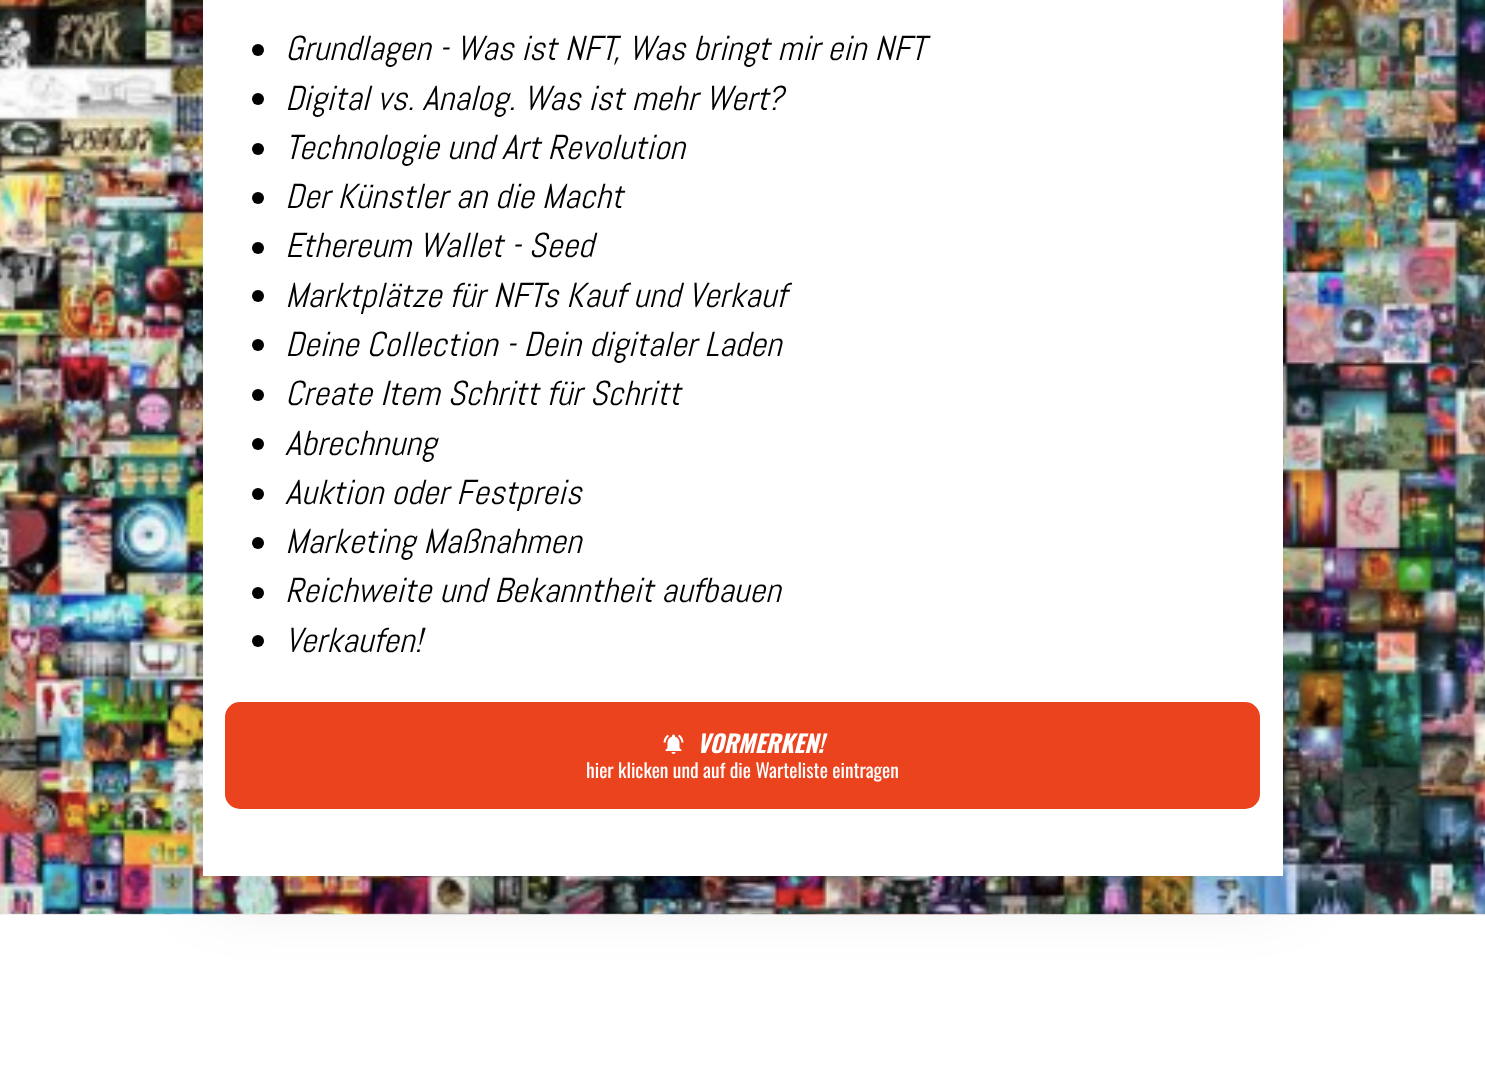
<!DOCTYPE html>
<meta charset="utf-8">
<style>body { margin: 0 } canvas { display: block }</style>
<canvas id="canvas" width="1485" height="1072"></canvas>
<script type="module">
  const canvas = document.getElementById("canvas");
  const ctx = canvas.getContext("2d");
  ctx.miterLimit = 4;
  ctx.fontKerning = "normal";
  async function loadImage(src) {
    const img = new Image();
    img.src = src;
    await img.decode();
    return img;
  }

  ctx.fillStyle = "#ffffff";
  ctx.fillRect(0, 0, 1485, 1072);
  ctx.drawImage(await loadImage("img1.png"), 0, 0, 1485, 915);
  ctx.drawImage(await loadImage("img3.png"), 0, 914, 1485, 1);
  ctx.fillStyle = "rgba(0, 0, 0, 0.15)";
  ctx.filter = "blur(37.5px)";
  ctx.beginPath();
  ctx.rect(207, -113, 1080, 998);
  ctx.fill();
  ctx.filter = "none";
  ctx.fillStyle = "#ffffff";
  ctx.fillRect(203, 0, 1080, 876);
  ctx.fillStyle = "#000000";
  ctx.beginPath();
  ctx.arc(258, 50, 6, 0, Math.PI * 2);
  ctx.fill();
  ctx.font = "italic 34.5px Abel";
  ctx.fillText("Grundlagen - Was ist NFT, Was bringt mir ein NFT", 285, 60);
  ctx.beginPath();
  ctx.arc(258, 99, 6, 0, Math.PI * 2);
  ctx.fill();
  ctx.fillText("Digital vs. Analog. Was ist mehr Wert?", 285, 110);
  ctx.beginPath();
  ctx.arc(258, 149, 6, 0, Math.PI * 2);
  ctx.fill();
  ctx.fillText("Technologie und Art Revolution", 285, 159);
  ctx.beginPath();
  ctx.arc(258, 198, 6, 0, Math.PI * 2);
  ctx.fill();
  ctx.fillText("Der Künstler an die Macht", 285, 208);
  ctx.beginPath();
  ctx.arc(258, 248, 6, 0, Math.PI * 2);
  ctx.fill();
  ctx.fillText("Ethereum Wallet - Seed", 285, 257);
  ctx.beginPath();
  ctx.arc(258, 296, 6, 0, Math.PI * 2);
  ctx.fill();
  ctx.fillText("Marktplätze für NFTs Kauf und Verkauf", 285, 307);
  ctx.beginPath();
  ctx.arc(258, 345, 6, 0, Math.PI * 2);
  ctx.fill();
  ctx.fillText("Deine Collection - Dein digitaler Laden", 285, 356);
  ctx.beginPath();
  ctx.arc(258, 395, 6, 0, Math.PI * 2);
  ctx.fill();
  ctx.fillText("Create Item Schritt für Schritt", 285, 405);
  ctx.beginPath();
  ctx.arc(258, 444, 6, 0, Math.PI * 2);
  ctx.fill();
  ctx.fillText("Abrechnung", 285, 455);
  ctx.beginPath();
  ctx.arc(258, 494, 6, 0, Math.PI * 2);
  ctx.fill();
  ctx.fillText("Auktion oder Festpreis", 285, 504);
  ctx.beginPath();
  ctx.arc(258, 543, 6, 0, Math.PI * 2);
  ctx.fill();
  ctx.fillText("Marketing Maßnahmen", 285, 553);
  ctx.beginPath();
  ctx.arc(258, 593, 6, 0, Math.PI * 2);
  ctx.fill();
  ctx.fillText("Reichweite und Bekanntheit aufbauen", 285, 602);
  ctx.beginPath();
  ctx.arc(258, 641, 6, 0, Math.PI * 2);
  ctx.fill();
  ctx.fillText("Verkaufen!", 285, 652);
  ctx.fillStyle = "#ea431e";
  ctx.beginPath();
  ctx.roundRect(225, 702, 1035, 107, 15);
  ctx.fill();
  ctx.drawImage(await loadImage("img2.png"), 663, 734, 21, 20);
  ctx.font = "italic bold 24px Oswald";
  ctx.fillStyle = "#ffffff";
  ctx.fillText("VORMERKEN!", 697, 753);
  ctx.font = "19.5px Oswald";
  ctx.fillText("hier klicken und auf die Warteliste eintragen", 586, 778);
</script>
